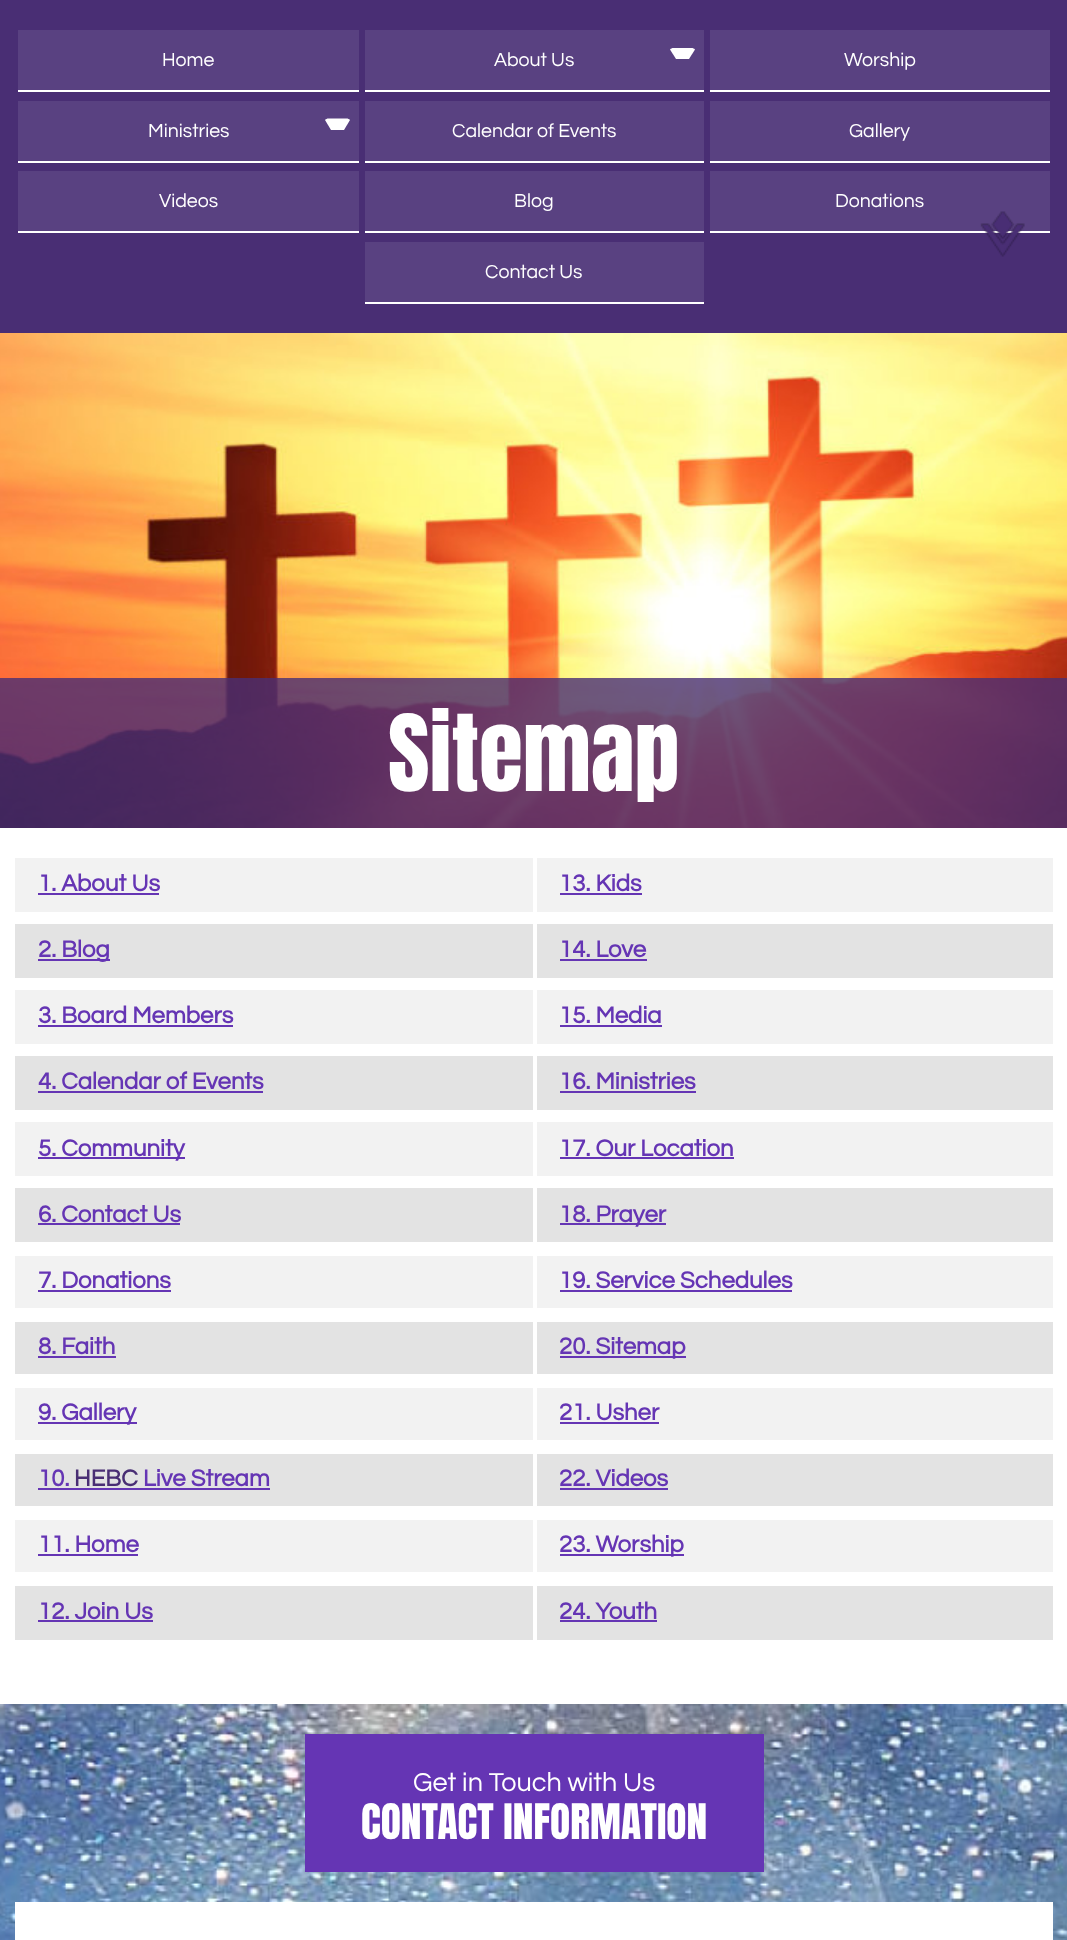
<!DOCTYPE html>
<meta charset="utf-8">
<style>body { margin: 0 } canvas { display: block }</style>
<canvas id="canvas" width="1067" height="1940"></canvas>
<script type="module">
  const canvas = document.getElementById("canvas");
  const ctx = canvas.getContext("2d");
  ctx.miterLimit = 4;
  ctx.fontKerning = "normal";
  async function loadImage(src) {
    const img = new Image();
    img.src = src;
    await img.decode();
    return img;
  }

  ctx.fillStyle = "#ffffff";
  ctx.fillRect(0, 0, 1067, 1940);
  ctx.fillStyle = "#492e74";
  ctx.fillRect(0, 0, 1067, 333);
  ctx.fillStyle = "#594181";
  ctx.fillRect(18, 30, 341, 60);
  ctx.fillStyle = "#ffffff";
  ctx.fillRect(18, 90, 341, 2);
  ctx.font = "19.5px Questrial";
  ctx.fillText("Home", 162, 66);
  ctx.fillStyle = "#594181";
  ctx.fillRect(365, 30, 339, 60);
  ctx.fillStyle = "#ffffff";
  ctx.fillRect(365, 90, 339, 2);
  ctx.fillText("About Us", 494, 66);
  ctx.beginPath();
  ctx.moveTo(673.5, 48);
  ctx.bezierCurveTo(672, 48, 671, 48.5, 670, 49.5);
  ctx.lineTo(676, 59);
  ctx.lineTo(689, 59);
  ctx.lineTo(695, 49.5);
  ctx.bezierCurveTo(694, 48.5, 693, 48, 691.5, 48);
  ctx.closePath();
  ctx.fill();
  ctx.fillStyle = "#594181";
  ctx.fillRect(710, 30, 340, 60);
  ctx.fillStyle = "#ffffff";
  ctx.fillRect(710, 90, 340, 2);
  ctx.fillText("Worship", 844, 66);
  ctx.fillStyle = "#594181";
  ctx.fillRect(18, 101, 341, 60);
  ctx.fillStyle = "#ffffff";
  ctx.fillRect(18, 161, 341, 2);
  ctx.fillText("Ministries", 148, 137);
  ctx.beginPath();
  ctx.moveTo(328.5, 118.5);
  ctx.bezierCurveTo(327, 118.5, 326, 119, 325, 120);
  ctx.lineTo(331, 130);
  ctx.lineTo(344, 130);
  ctx.lineTo(350, 120);
  ctx.bezierCurveTo(349, 119, 348, 118.5, 346.5, 118.5);
  ctx.closePath();
  ctx.fill();
  ctx.fillStyle = "#594181";
  ctx.fillRect(365, 101, 339, 60);
  ctx.fillStyle = "#ffffff";
  ctx.fillRect(365, 161, 339, 2);
  ctx.fillText("Calendar of Events", 452, 137);
  ctx.fillStyle = "#594181";
  ctx.fillRect(710, 101, 340, 60);
  ctx.fillStyle = "#ffffff";
  ctx.fillRect(710, 161, 340, 2);
  ctx.fillText("Gallery", 849, 137);
  ctx.fillStyle = "#594181";
  ctx.fillRect(18, 171, 341, 60);
  ctx.fillStyle = "#ffffff";
  ctx.fillRect(18, 231, 341, 2);
  ctx.fillText("Videos", 159, 207);
  ctx.fillStyle = "#594181";
  ctx.fillRect(365, 171, 339, 60);
  ctx.fillStyle = "#ffffff";
  ctx.fillRect(365, 231, 339, 2);
  ctx.fillText("Blog", 514, 207);
  ctx.fillStyle = "#594181";
  ctx.fillRect(710, 171, 340, 60);
  ctx.fillStyle = "#ffffff";
  ctx.fillRect(710, 231, 340, 2);
  ctx.fillText("Donations", 835, 207);
  ctx.fillStyle = "#594181";
  ctx.fillRect(365, 242, 339, 60);
  ctx.fillStyle = "#ffffff";
  ctx.fillRect(365, 302, 339, 2);
  ctx.fillText("Contact Us", 485, 278);
  ctx.drawImage(await loadImage("img1.png"), 980, 211, 45, 46);
  ctx.drawImage(await loadImage("img2.png"), 0, 333, 1067, 495);
  ctx.fillStyle = "rgba(73, 46, 116, 0.8)";
  ctx.fillRect(0, 678, 1067, 150);
  ctx.font = "90px Anton";
  ctx.fillStyle = "#ffffff";
  ctx.fillText("Sitemap", 388, 791);
  ctx.fillStyle = "#f2f2f2";
  ctx.fillRect(15, 858, 518, 54);
  ctx.font = "bold 24px Questrial";
  ctx.fillStyle = "#6535b4";
  ctx.fillText("1. About Us", 38, 891);
  ctx.fillRect(38, 893, 121, 2);
  ctx.fillStyle = "#f2f2f2";
  ctx.fillRect(537, 858, 516, 54);
  ctx.fillStyle = "#6535b4";
  ctx.fillText("13. Kids", 559, 891);
  ctx.fillRect(560, 893, 82, 2);
  ctx.fillStyle = "#e3e3e3";
  ctx.fillRect(15, 924, 518, 54);
  ctx.fillStyle = "#6535b4";
  ctx.fillRect(38, 959, 72, 2);
  ctx.fillText("2. Blog", 38, 957);
  ctx.fillStyle = "#e3e3e3";
  ctx.fillRect(537, 924, 516, 54);
  ctx.fillStyle = "#6535b4";
  ctx.fillText("14. Love", 559, 957);
  ctx.fillRect(560, 959, 87, 2);
  ctx.fillStyle = "#f2f2f2";
  ctx.fillRect(15, 990, 518, 54);
  ctx.fillStyle = "#6535b4";
  ctx.fillText("3. Board Members", 38, 1023);
  ctx.fillRect(38, 1025, 195, 2);
  ctx.fillStyle = "#f2f2f2";
  ctx.fillRect(537, 990, 516, 54);
  ctx.fillStyle = "#6535b4";
  ctx.fillText("15. Media", 559, 1023);
  ctx.fillRect(560, 1025, 102, 2);
  ctx.fillStyle = "#e3e3e3";
  ctx.fillRect(15, 1056, 518, 54);
  ctx.fillStyle = "#6535b4";
  ctx.fillText("4. Calendar of Events", 38, 1089);
  ctx.fillRect(38, 1091, 225, 2);
  ctx.fillStyle = "#e3e3e3";
  ctx.fillRect(537, 1056, 516, 54);
  ctx.fillStyle = "#6535b4";
  ctx.fillText("16. Ministries", 559, 1089);
  ctx.fillRect(560, 1091, 136, 2);
  ctx.fillStyle = "#f2f2f2";
  ctx.fillRect(15, 1122, 518, 54);
  ctx.fillStyle = "#6535b4";
  ctx.fillRect(38, 1157, 147, 2);
  ctx.fillText("5. Community", 38, 1156);
  ctx.fillStyle = "#f2f2f2";
  ctx.fillRect(537, 1122, 516, 54);
  ctx.fillStyle = "#6535b4";
  ctx.fillText("17. Our Location", 559, 1156);
  ctx.fillRect(560, 1157, 174, 2);
  ctx.fillStyle = "#e3e3e3";
  ctx.fillRect(15, 1188, 518, 54);
  ctx.fillStyle = "#6535b4";
  ctx.fillText("6. Contact Us", 38, 1222);
  ctx.fillRect(38, 1223, 142, 2);
  ctx.fillStyle = "#e3e3e3";
  ctx.fillRect(537, 1188, 516, 54);
  ctx.fillStyle = "#6535b4";
  ctx.fillRect(560, 1223, 106, 2);
  ctx.fillText("18. Prayer", 559, 1222);
  ctx.fillStyle = "#f2f2f2";
  ctx.fillRect(15, 1256, 518, 52);
  ctx.fillStyle = "#6535b4";
  ctx.fillText("7. Donations", 38, 1288);
  ctx.fillRect(38, 1290, 133, 2);
  ctx.fillStyle = "#f2f2f2";
  ctx.fillRect(537, 1256, 516, 52);
  ctx.fillStyle = "#6535b4";
  ctx.fillText("19. Service Schedules", 559, 1288);
  ctx.fillRect(560, 1290, 232, 2);
  ctx.fillStyle = "#e3e3e3";
  ctx.fillRect(15, 1322, 518, 52);
  ctx.fillStyle = "#6535b4";
  ctx.fillText("8. Faith", 38, 1354);
  ctx.fillRect(38, 1356, 78, 2);
  ctx.fillStyle = "#e3e3e3";
  ctx.fillRect(537, 1322, 516, 52);
  ctx.fillStyle = "#6535b4";
  ctx.fillRect(560, 1356, 126, 2);
  ctx.fillText("20. Sitemap", 559, 1354);
  ctx.fillStyle = "#f2f2f2";
  ctx.fillRect(15, 1388, 518, 52);
  ctx.fillStyle = "#6535b4";
  ctx.fillRect(38, 1422, 99, 2);
  ctx.fillText("9. Gallery", 38, 1420);
  ctx.fillStyle = "#f2f2f2";
  ctx.fillRect(537, 1388, 516, 52);
  ctx.fillStyle = "#6535b4";
  ctx.fillText("21. Usher", 559, 1420);
  ctx.fillRect(560, 1422, 99, 2);
  ctx.fillStyle = "#e3e3e3";
  ctx.fillRect(15, 1454, 518, 52);
  ctx.fillStyle = "#6535b4";
  ctx.fillText("10.", 38, 1486);
  ctx.fillRect(38, 1488, 232, 2);
  ctx.fillStyle = "#492e74";
  ctx.fillText("HEBC", 74, 1486);
  ctx.fillStyle = "#6535b4";
  ctx.fillText("Live Stream", 143, 1486);
  ctx.fillStyle = "#e3e3e3";
  ctx.fillRect(537, 1454, 516, 52);
  ctx.fillStyle = "#6535b4";
  ctx.fillText("22. Videos", 559, 1486);
  ctx.fillRect(560, 1488, 108, 2);
  ctx.fillStyle = "#f2f2f2";
  ctx.fillRect(15, 1520, 518, 52);
  ctx.fillStyle = "#6535b4";
  ctx.fillText("11. Home", 38, 1552);
  ctx.fillRect(38, 1554, 100, 2);
  ctx.fillStyle = "#f2f2f2";
  ctx.fillRect(537, 1520, 516, 52);
  ctx.fillStyle = "#6535b4";
  ctx.fillRect(560, 1554, 124, 2);
  ctx.fillText("23. Worship", 559, 1552);
  ctx.fillStyle = "#e3e3e3";
  ctx.fillRect(15, 1586, 518, 54);
  ctx.fillStyle = "#6535b4";
  ctx.fillText("12. Join Us", 38, 1619);
  ctx.fillRect(38, 1620, 115, 2);
  ctx.fillStyle = "#e3e3e3";
  ctx.fillRect(537, 1586, 516, 54);
  ctx.fillStyle = "#6535b4";
  ctx.fillText("24. Youth", 559, 1619);
  ctx.fillRect(560, 1620, 97, 2);
  ctx.drawImage(await loadImage("img3.png"), 0, 1704, 1067, 236);
  ctx.fillRect(305, 1734, 459, 138);
  ctx.font = "27px Questrial";
  ctx.fillStyle = "#ffffff";
  ctx.fillText("Get in Touch with Us", 413, 1791);
  ctx.font = "41.5px Anton";
  ctx.fillText("CONTACT INFORMATION", 361, 1839);
  ctx.fillRect(15, 1902, 1038, 38);
</script>
